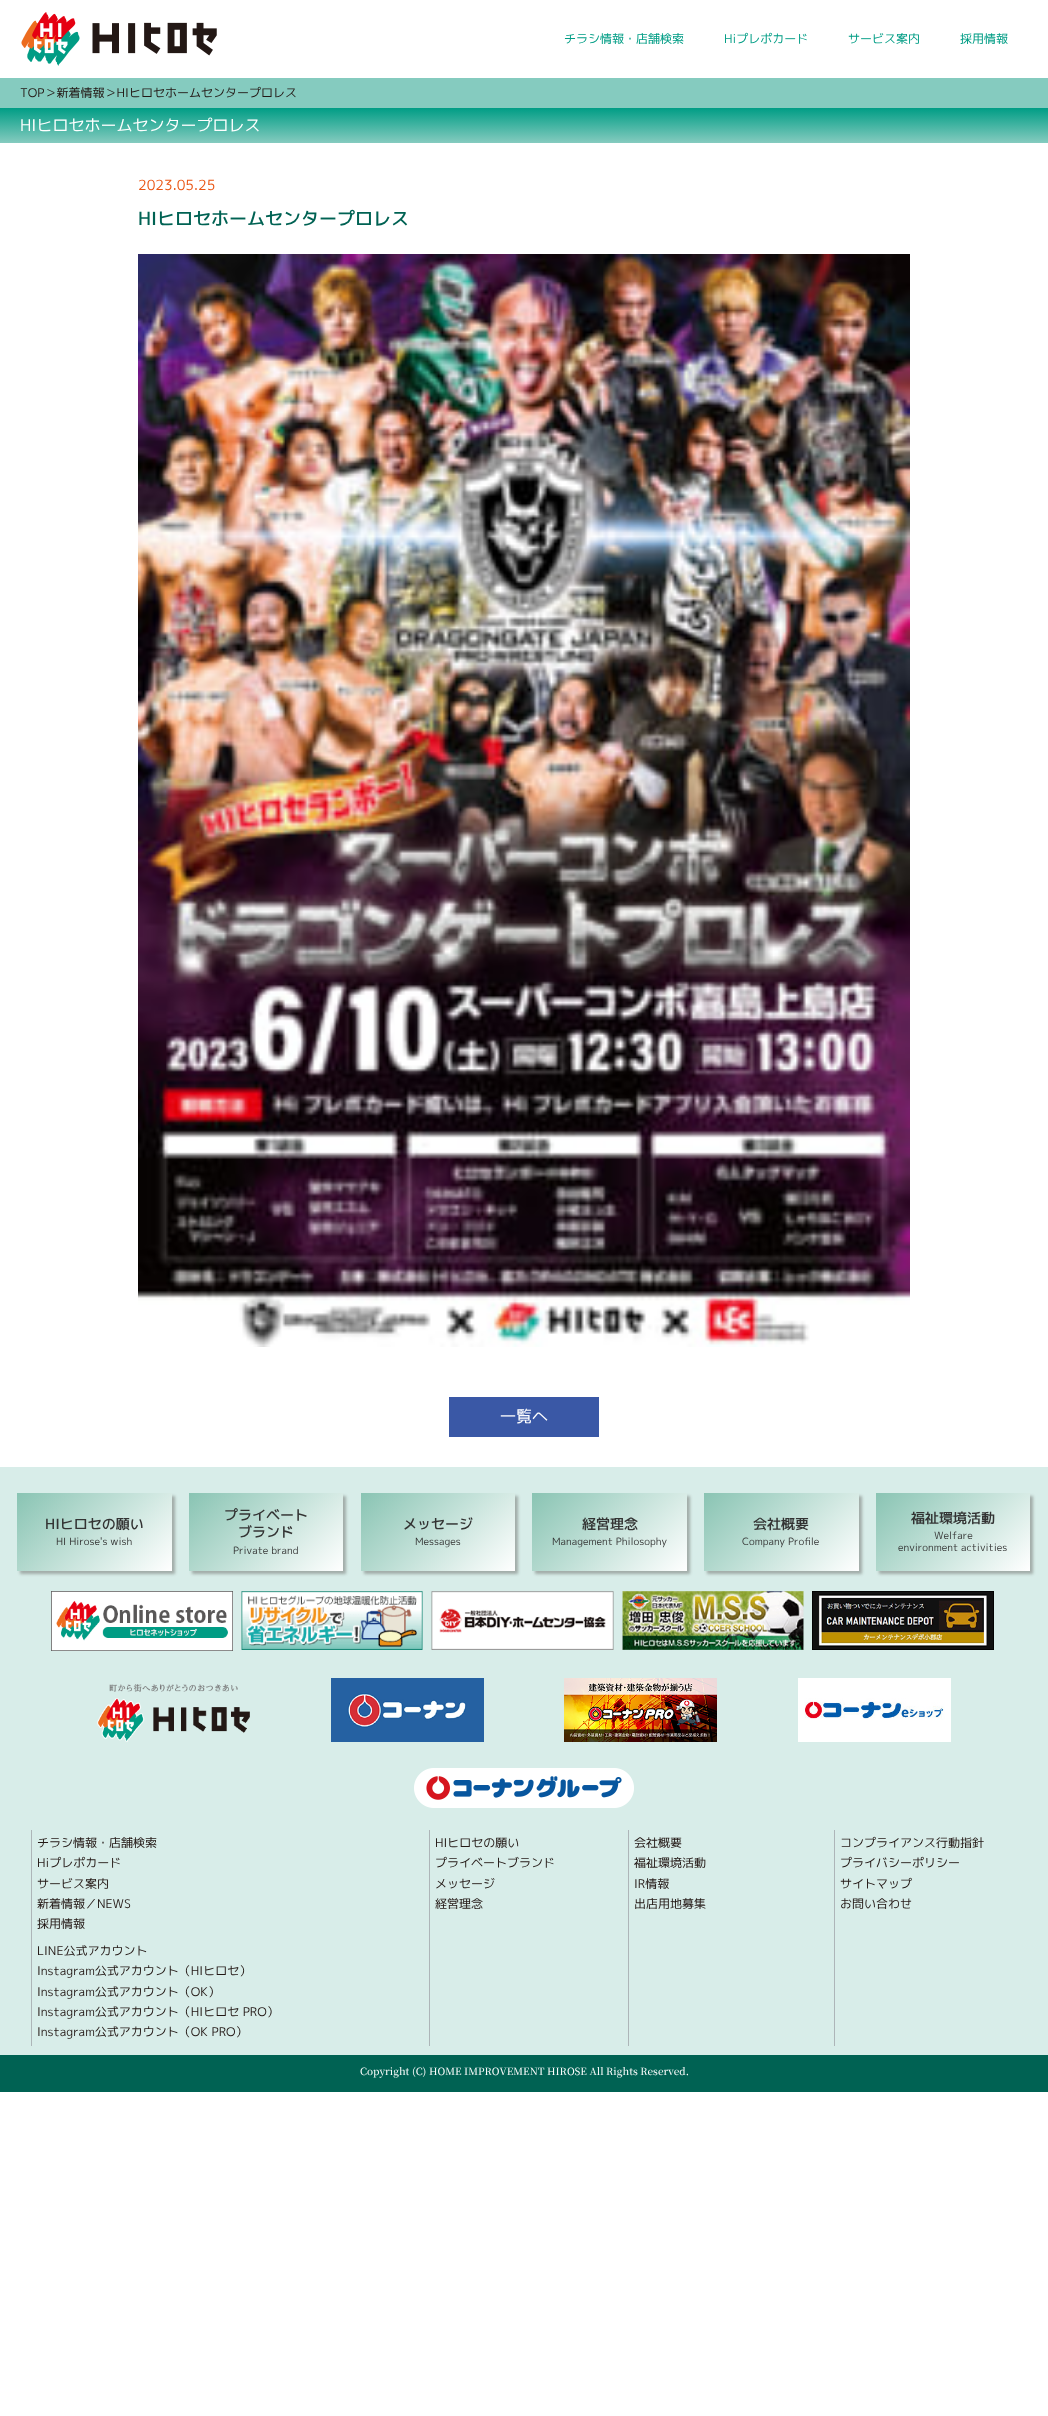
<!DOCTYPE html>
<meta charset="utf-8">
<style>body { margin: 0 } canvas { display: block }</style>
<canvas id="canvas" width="1048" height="2416"></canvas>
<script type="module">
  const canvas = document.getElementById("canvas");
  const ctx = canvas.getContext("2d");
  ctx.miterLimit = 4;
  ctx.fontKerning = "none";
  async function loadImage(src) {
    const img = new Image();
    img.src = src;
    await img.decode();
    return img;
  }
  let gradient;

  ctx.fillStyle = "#ffffff";
  ctx.fillRect(0, 0, 1048, 2416);
  ctx.drawImage(await loadImage("img1.png"), 21, 12, 196, 54);
  ctx.font = "12px 'M PLUS 1p'";
  ctx.fillStyle = "#009d85";
  ctx.fillText("チラシ情報・店舗検索", 564, 43);
  ctx.fillText("Hiプレポカード", 724, 43);
  ctx.fillText("サービス案内", 848, 43);
  ctx.fillText("採用情報", 960, 43);
  ctx.fillStyle = "#85cbbf";
  ctx.fillRect(0, 78, 1048, 30);
  ctx.fillStyle = "#231815";
  ctx.fillText("TOP＞新着情報＞HIヒロセホームセンタープロレス", 20, 97);
  gradient = ctx.createLinearGradient(524, 108, 524, 143);
  gradient.addColorStop(0, "#009d85");
  gradient.addColorStop(1, "#85cbbf");
  ctx.fillStyle = gradient;
  ctx.fillRect(0, 108, 1048, 35);
  ctx.font = "16px 'M PLUS 1p'";
  ctx.fillStyle = "#ffffff";
  ctx.fillText("HIヒロセホームセンタープロレス", 20, 131);
  ctx.font = "14px 'M PLUS 1p'";
  ctx.fillStyle = "#ea5513";
  ctx.fillText("2023.05.25", 138, 190);
  ctx.font = "500 18px 'M PLUS 1p'";
  ctx.fillStyle = "#006253";
  ctx.fillText("HIヒロセホームセンタープロレス", 138, 225);
  ctx.drawImage(await loadImage("img2.png"), 138, 254, 772, 1093);
  ctx.fillStyle = "#3a58a6";
  ctx.fillRect(449, 1397, 150, 40);
  ctx.font = "16px 'M PLUS 1p'";
  ctx.fillStyle = "#ffffff";
  ctx.fillText("一覧へ", 500, 1422);
  ctx.fillStyle = "#d8ede9";
  ctx.fillRect(0, 1467, 1048, 588);
  ctx.fillStyle = "rgba(35, 24, 21, 0.3)";
  ctx.filter = "blur(1.5px)";
  ctx.beginPath();
  ctx.rect(20, 1496, 155, 78);
  ctx.fill();
  ctx.filter = "none";
  gradient = ctx.createLinearGradient(36, 1474, 153, 1590);
  gradient.addColorStop(0, "#89c4b3");
  gradient.addColorStop(1, "#ffffff");
  ctx.fillStyle = gradient;
  ctx.fillRect(17, 1493, 155, 78);
  ctx.font = "500 14px 'M PLUS 1p'";
  ctx.fillStyle = "#333333";
  ctx.fillText("HIヒロセの願い", 45, 1529);
  ctx.font = "10px 'M PLUS 1p'";
  ctx.fillText("HI Hirose's wish", 56, 1545);
  ctx.fillStyle = "rgba(35, 24, 21, 0.3)";
  ctx.filter = "blur(1.5px)";
  ctx.beginPath();
  ctx.rect(192, 1496, 154, 78);
  ctx.fill();
  ctx.filter = "none";
  gradient = ctx.createLinearGradient(208, 1474, 324, 1590);
  gradient.addColorStop(0, "#89c4b3");
  gradient.addColorStop(1, "#ffffff");
  ctx.fillStyle = gradient;
  ctx.fillRect(189, 1493, 154, 78);
  ctx.font = "500 14px 'M PLUS 1p'";
  ctx.fillStyle = "#333333";
  ctx.fillText("プライベート", 224, 1520);
  ctx.fillText("ブランド", 238, 1537);
  ctx.font = "10px 'M PLUS 1p'";
  ctx.fillText("Private brand", 233, 1554);
  ctx.fillStyle = "rgba(35, 24, 21, 0.3)";
  ctx.filter = "blur(1.5px)";
  ctx.beginPath();
  ctx.rect(364, 1496, 154, 78);
  ctx.fill();
  ctx.filter = "none";
  gradient = ctx.createLinearGradient(380, 1474, 496, 1590);
  gradient.addColorStop(0, "#89c4b3");
  gradient.addColorStop(1, "#ffffff");
  ctx.fillStyle = gradient;
  ctx.fillRect(361, 1493, 154, 78);
  ctx.font = "500 14px 'M PLUS 1p'";
  ctx.fillStyle = "#333333";
  ctx.fillText("メッセージ", 403, 1529);
  ctx.font = "10px 'M PLUS 1p'";
  ctx.fillText("Messages", 415, 1545);
  ctx.fillStyle = "rgba(35, 24, 21, 0.3)";
  ctx.filter = "blur(1.5px)";
  ctx.beginPath();
  ctx.rect(535, 1496, 155, 78);
  ctx.fill();
  ctx.filter = "none";
  gradient = ctx.createLinearGradient(551, 1474, 668, 1590);
  gradient.addColorStop(0, "#89c4b3");
  gradient.addColorStop(1, "#ffffff");
  ctx.fillStyle = gradient;
  ctx.fillRect(532, 1493, 155, 78);
  ctx.font = "500 14px 'M PLUS 1p'";
  ctx.fillStyle = "#333333";
  ctx.fillText("経営理念", 582, 1529);
  ctx.font = "10px 'M PLUS 1p'";
  ctx.fillText("Management Philosophy", 552, 1545);
  ctx.fillStyle = "rgba(35, 24, 21, 0.3)";
  ctx.filter = "blur(1.5px)";
  ctx.beginPath();
  ctx.rect(707, 1496, 155, 78);
  ctx.fill();
  ctx.filter = "none";
  gradient = ctx.createLinearGradient(723, 1474, 840, 1590);
  gradient.addColorStop(0, "#89c4b3");
  gradient.addColorStop(1, "#ffffff");
  ctx.fillStyle = gradient;
  ctx.fillRect(704, 1493, 155, 78);
  ctx.font = "500 14px 'M PLUS 1p'";
  ctx.fillStyle = "#333333";
  ctx.fillText("会社概要", 753, 1529);
  ctx.font = "10px 'M PLUS 1p'";
  ctx.fillText("Company Profile", 742, 1545);
  ctx.fillStyle = "rgba(35, 24, 21, 0.3)";
  ctx.filter = "blur(1.5px)";
  ctx.beginPath();
  ctx.rect(879, 1496, 154, 78);
  ctx.fill();
  ctx.filter = "none";
  gradient = ctx.createLinearGradient(895, 1474, 1011, 1590);
  gradient.addColorStop(0, "#89c4b3");
  gradient.addColorStop(1, "#ffffff");
  ctx.fillStyle = gradient;
  ctx.fillRect(876, 1493, 154, 78);
  ctx.font = "500 14px 'M PLUS 1p'";
  ctx.fillStyle = "#333333";
  ctx.fillText("福祉環境活動", 911, 1523);
  ctx.font = "10px 'M PLUS 1p'";
  ctx.fillText("Welfare", 934, 1539);
  ctx.fillText("environment activities", 898, 1551);
  ctx.drawImage(await loadImage("img3.png"), 51, 1591, 182, 60);
  ctx.drawImage(await loadImage("img4.png"), 241, 1591, 182, 59);
  ctx.drawImage(await loadImage("img5.png"), 431, 1591, 183, 59);
  ctx.drawImage(await loadImage("img6.png"), 622, 1591, 182, 59);
  ctx.drawImage(await loadImage("img7.png"), 812, 1591, 182, 59);
  ctx.drawImage(await loadImage("img8.png"), 97, 1684, 153, 58);
  ctx.drawImage(await loadImage("img9.png"), 331, 1678, 153, 64);
  ctx.drawImage(await loadImage("img10.png"), 564, 1678, 153, 64);
  ctx.drawImage(await loadImage("img11.png"), 798, 1678, 153, 64);
  ctx.drawImage(await loadImage("img12.png"), 414, 1768, 220, 40);
  ctx.fillStyle = "#adb5b8";
  ctx.fillRect(31, 1830, 1, 216);
  ctx.font = "12px 'M PLUS 1p'";
  ctx.fillStyle = "#231815";
  ctx.fillText("チラシ情報・店舗検索", 37, 1847);
  ctx.fillText("Hiプレポカード", 37, 1867);
  ctx.fillText("サービス案内", 37, 1888);
  ctx.fillText("新着情報／NEWS", 37, 1908);
  ctx.fillText("採用情報", 37, 1928);
  ctx.fillText("LINE公式アカウント", 37, 1955);
  ctx.fillText("Instagram公式アカウント（HIヒロセ）", 37, 1975);
  ctx.fillText("Instagram公式アカウント（OK）", 37, 1996);
  ctx.fillText("Instagram公式アカウント（HIヒロセ PRO）", 37, 2016);
  ctx.fillText("Instagram公式アカウント（OK PRO）", 37, 2036);
  ctx.fillStyle = "#adb5b8";
  ctx.fillRect(429, 1830, 1, 216);
  ctx.fillStyle = "#231815";
  ctx.fillText("HIヒロセの願い", 435, 1847);
  ctx.fillText("プライベートブランド", 435, 1867);
  ctx.fillText("メッセージ", 435, 1888);
  ctx.fillText("経営理念", 435, 1908);
  ctx.fillStyle = "#adb5b8";
  ctx.fillRect(628, 1830, 1, 216);
  ctx.fillStyle = "#231815";
  ctx.fillText("会社概要", 634, 1847);
  ctx.fillText("福祉環境活動", 634, 1867);
  ctx.fillText("IR情報", 634, 1888);
  ctx.fillText("出店用地募集", 634, 1908);
  ctx.fillStyle = "#adb5b8";
  ctx.fillRect(834, 1830, 1, 216);
  ctx.fillStyle = "#231815";
  ctx.fillText("コンプライアンス行動指針", 840, 1847);
  ctx.fillText("プライバシーポリシー", 840, 1867);
  ctx.fillText("サイトマップ", 840, 1888);
  ctx.fillText("お問い合わせ", 840, 1908);
  ctx.fillStyle = "#006253";
  ctx.fillRect(0, 2055, 1048, 37);
  ctx.font = "200 10px Noto Serif JP";
  ctx.fillStyle = "#ffffff";
  ctx.fillText("Copyright (C) HOME IMPROVEMENT HIROSE All Rights Reserved.", 360, 2075);
</script>
